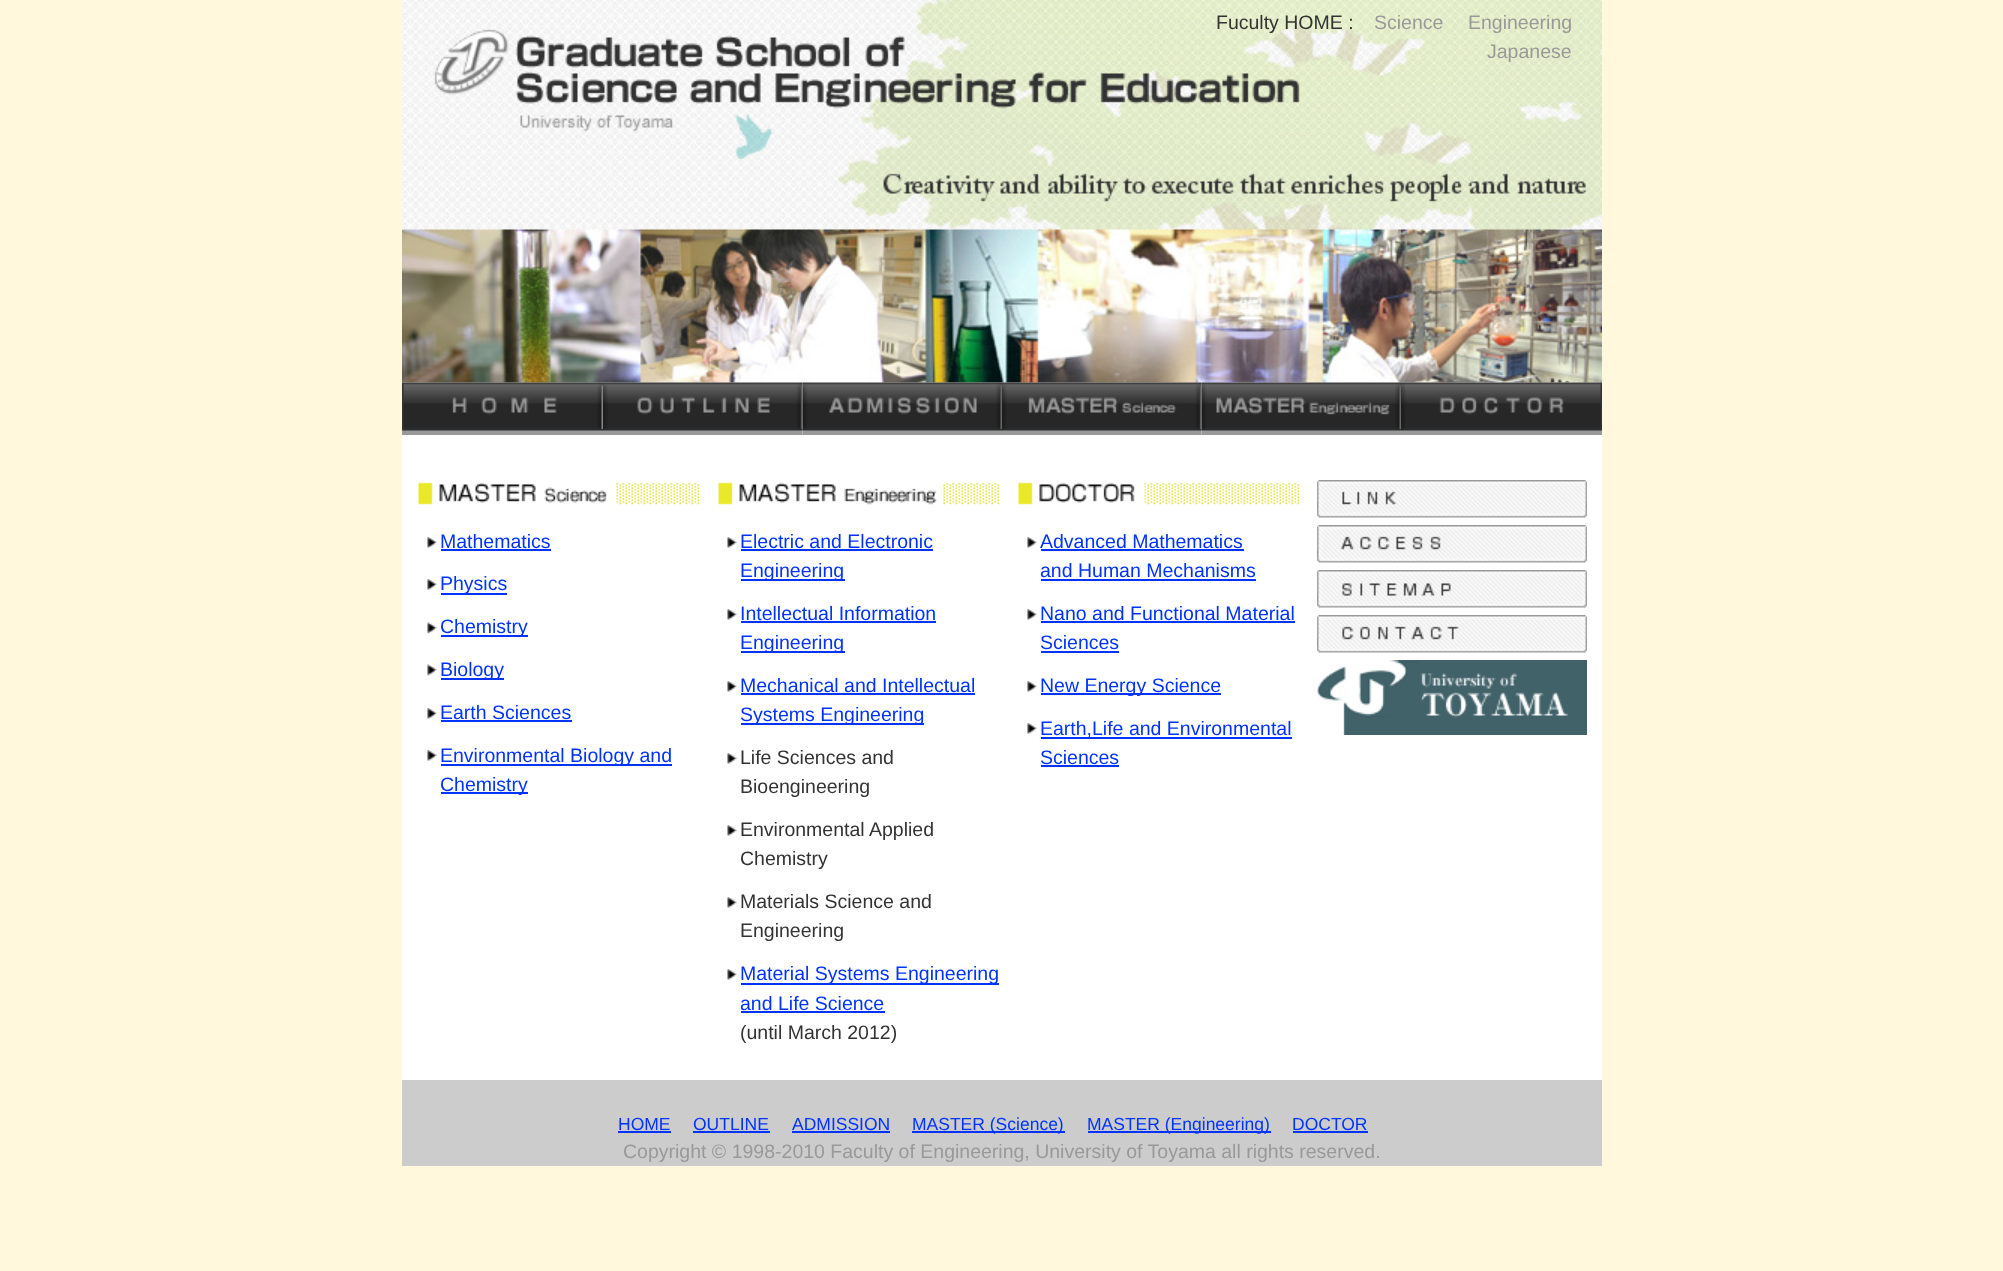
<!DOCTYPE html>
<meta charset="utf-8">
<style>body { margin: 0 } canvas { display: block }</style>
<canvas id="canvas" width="2003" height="1271"></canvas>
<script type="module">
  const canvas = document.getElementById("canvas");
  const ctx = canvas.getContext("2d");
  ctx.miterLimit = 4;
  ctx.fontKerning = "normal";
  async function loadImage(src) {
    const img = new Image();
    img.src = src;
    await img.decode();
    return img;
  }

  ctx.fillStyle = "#fff8dc";
  ctx.fillRect(0, 0, 2003, 1271);
  ctx.fillStyle = "#ffffff";
  ctx.fillRect(402, 382, 1200, 698);
  ctx.drawImage(await loadImage("img1.png"), 402, 0, 1200, 383);
  ctx.font = "19.5px Liberation Sans";
  ctx.fillStyle = "#333333";
  ctx.fillText("Fuculty HOME :", 1216, 29);
  ctx.fillStyle = "#999999";
  ctx.fillText("Science", 1374, 29);
  ctx.fillText("Engineering", 1468, 29);
  ctx.fillText("Japanese", 1487, 58);
  ctx.drawImage(await loadImage("img2.png"), 402, 382, 201, 53);
  ctx.drawImage(await loadImage("img3.png"), 603, 382, 200, 53);
  ctx.drawImage(await loadImage("img4.png"), 802, 382, 200, 53);
  ctx.drawImage(await loadImage("img5.png"), 1002, 382, 200, 53);
  ctx.drawImage(await loadImage("img6.png"), 1201, 382, 200, 53);
  ctx.drawImage(await loadImage("img7.png"), 1401, 382, 201, 53);
  ctx.drawImage(await loadImage("img8.png"), 418, 482, 282, 23);
  ctx.drawImage(await loadImage("img9.png"), 427, 537, 10, 11);
  ctx.fillStyle = "#0033ff";
  ctx.fillText("Mathematics", 440, 548);
  ctx.fillRect(441, 549, 110, 2);
  ctx.drawImage(await loadImage("img9.png"), 427, 579, 10, 11);
  ctx.fillRect(441, 593, 66, 2);
  ctx.fillText("Physics", 440, 590);
  ctx.drawImage(await loadImage("img10.png"), 427, 622, 10, 12);
  ctx.fillRect(441, 635, 87, 2);
  ctx.fillText("Chemistry", 440, 633);
  ctx.drawImage(await loadImage("img10.png"), 427, 664, 10, 12);
  ctx.fillRect(441, 678, 63, 2);
  ctx.fillText("Biology", 440, 676);
  ctx.drawImage(await loadImage("img9.png"), 427, 708, 10, 11);
  ctx.fillText("Earth Sciences", 440, 719);
  ctx.fillRect(441, 720, 131, 2);
  ctx.drawImage(await loadImage("img9.png"), 427, 750, 10, 11);
  ctx.fillRect(441, 764, 231, 2);
  ctx.fillText("Environmental Biology and", 440, 762);
  ctx.fillRect(441, 792, 87, 2);
  ctx.fillText("Chemistry", 440, 791);
  ctx.drawImage(await loadImage("img11.png"), 718, 482, 282, 23);
  ctx.drawImage(await loadImage("img12.png"), 727, 537, 10, 11);
  ctx.fillText("Electric and Electronic", 740, 548);
  ctx.fillRect(741, 549, 192, 2);
  ctx.fillRect(741, 579, 104, 2);
  ctx.fillText("Engineering", 740, 577);
  ctx.drawImage(await loadImage("img12.png"), 727, 609, 10, 11);
  ctx.fillText("Intellectual Information", 740, 620);
  ctx.fillRect(741, 621, 195, 2);
  ctx.fillRect(741, 651, 104, 2);
  ctx.fillText("Engineering", 740, 649);
  ctx.drawImage(await loadImage("img12.png"), 727, 681, 10, 11);
  ctx.fillText("Mechanical and Intellectual", 740, 692);
  ctx.fillRect(741, 693, 234, 2);
  ctx.fillRect(741, 723, 183, 2);
  ctx.fillText("Systems Engineering", 740, 721);
  ctx.drawImage(await loadImage("img12.png"), 727, 753, 10, 11);
  ctx.fillStyle = "#333333";
  ctx.fillText("Life Sciences and", 740, 764);
  ctx.fillText("Bioengineering", 740, 793);
  ctx.drawImage(await loadImage("img12.png"), 727, 825, 10, 11);
  ctx.fillText("Environmental Applied", 740, 836);
  ctx.fillText("Chemistry", 740, 865);
  ctx.drawImage(await loadImage("img12.png"), 727, 897, 10, 11);
  ctx.fillText("Materials Science and", 740, 908);
  ctx.fillText("Engineering", 740, 937);
  ctx.drawImage(await loadImage("img12.png"), 727, 969, 10, 11);
  ctx.fillStyle = "#0033ff";
  ctx.fillRect(741, 983, 258, 2);
  ctx.fillText("Material Systems Engineering", 740, 980);
  ctx.fillText("and Life Science", 740, 1010);
  ctx.fillRect(741, 1011, 144, 2);
  ctx.fillStyle = "#333333";
  ctx.fillText("(until March 2012)", 740, 1039);
  ctx.drawImage(await loadImage("img13.png"), 1018, 482, 282, 23);
  ctx.drawImage(await loadImage("img12.png"), 1027, 537, 10, 11);
  ctx.fillStyle = "#0033ff";
  ctx.fillText("Advanced Mathematics", 1040, 548);
  ctx.fillRect(1041, 549, 203, 2);
  ctx.fillText("and Human Mechanisms", 1040, 577);
  ctx.fillRect(1041, 579, 215, 2);
  ctx.drawImage(await loadImage("img12.png"), 1027, 609, 10, 11);
  ctx.fillText("Nano and Functional Material", 1040, 620);
  ctx.fillRect(1041, 621, 254, 2);
  ctx.fillText("Sciences", 1040, 649);
  ctx.fillRect(1041, 651, 78, 2);
  ctx.drawImage(await loadImage("img12.png"), 1027, 681, 10, 11);
  ctx.fillRect(1041, 693, 180, 2);
  ctx.fillText("New Energy Science", 1040, 692);
  ctx.drawImage(await loadImage("img12.png"), 1027, 723, 10, 11);
  ctx.fillRect(1041, 737, 251, 2);
  ctx.fillText("Earth,Life and Environmental", 1040, 735);
  ctx.fillText("Sciences", 1040, 764);
  ctx.fillRect(1041, 765, 78, 2);
  ctx.drawImage(await loadImage("img14.png"), 1317, 480, 270, 38);
  ctx.drawImage(await loadImage("img15.png"), 1317, 525, 270, 38);
  ctx.drawImage(await loadImage("img16.png"), 1317, 570, 270, 38);
  ctx.drawImage(await loadImage("img17.png"), 1317, 615, 270, 38);
  ctx.drawImage(await loadImage("img18.png"), 1317, 660, 270, 75);
  ctx.fillStyle = "#cccccc";
  ctx.fillRect(402, 1080, 1200, 86);
  ctx.font = "17.5px Liberation Sans";
  ctx.fillStyle = "#0033ff";
  ctx.fillText("HOME", 618, 1130);
  ctx.fillRect(618, 1131, 53, 2);
  ctx.fillText("OUTLINE", 693, 1130);
  ctx.fillRect(693, 1131, 77, 2);
  ctx.fillText("ADMISSION", 792, 1130);
  ctx.fillRect(792, 1131, 98, 2);
  ctx.fillRect(912, 1131, 153, 2);
  ctx.fillText("MASTER (Science)", 912, 1130);
  ctx.fillRect(1088, 1131, 183, 2);
  ctx.fillText("MASTER (Engineering)", 1087, 1130);
  ctx.fillText("DOCTOR", 1292, 1130);
  ctx.fillRect(1293, 1131, 75, 2);
  ctx.font = "19.5px Liberation Sans";
  ctx.fillStyle = "#999999";
  ctx.fillText("Copyright © 1998-2010 Faculty of Engineering, University of Toyama all rights reserved.", 623, 1158);
</script>
